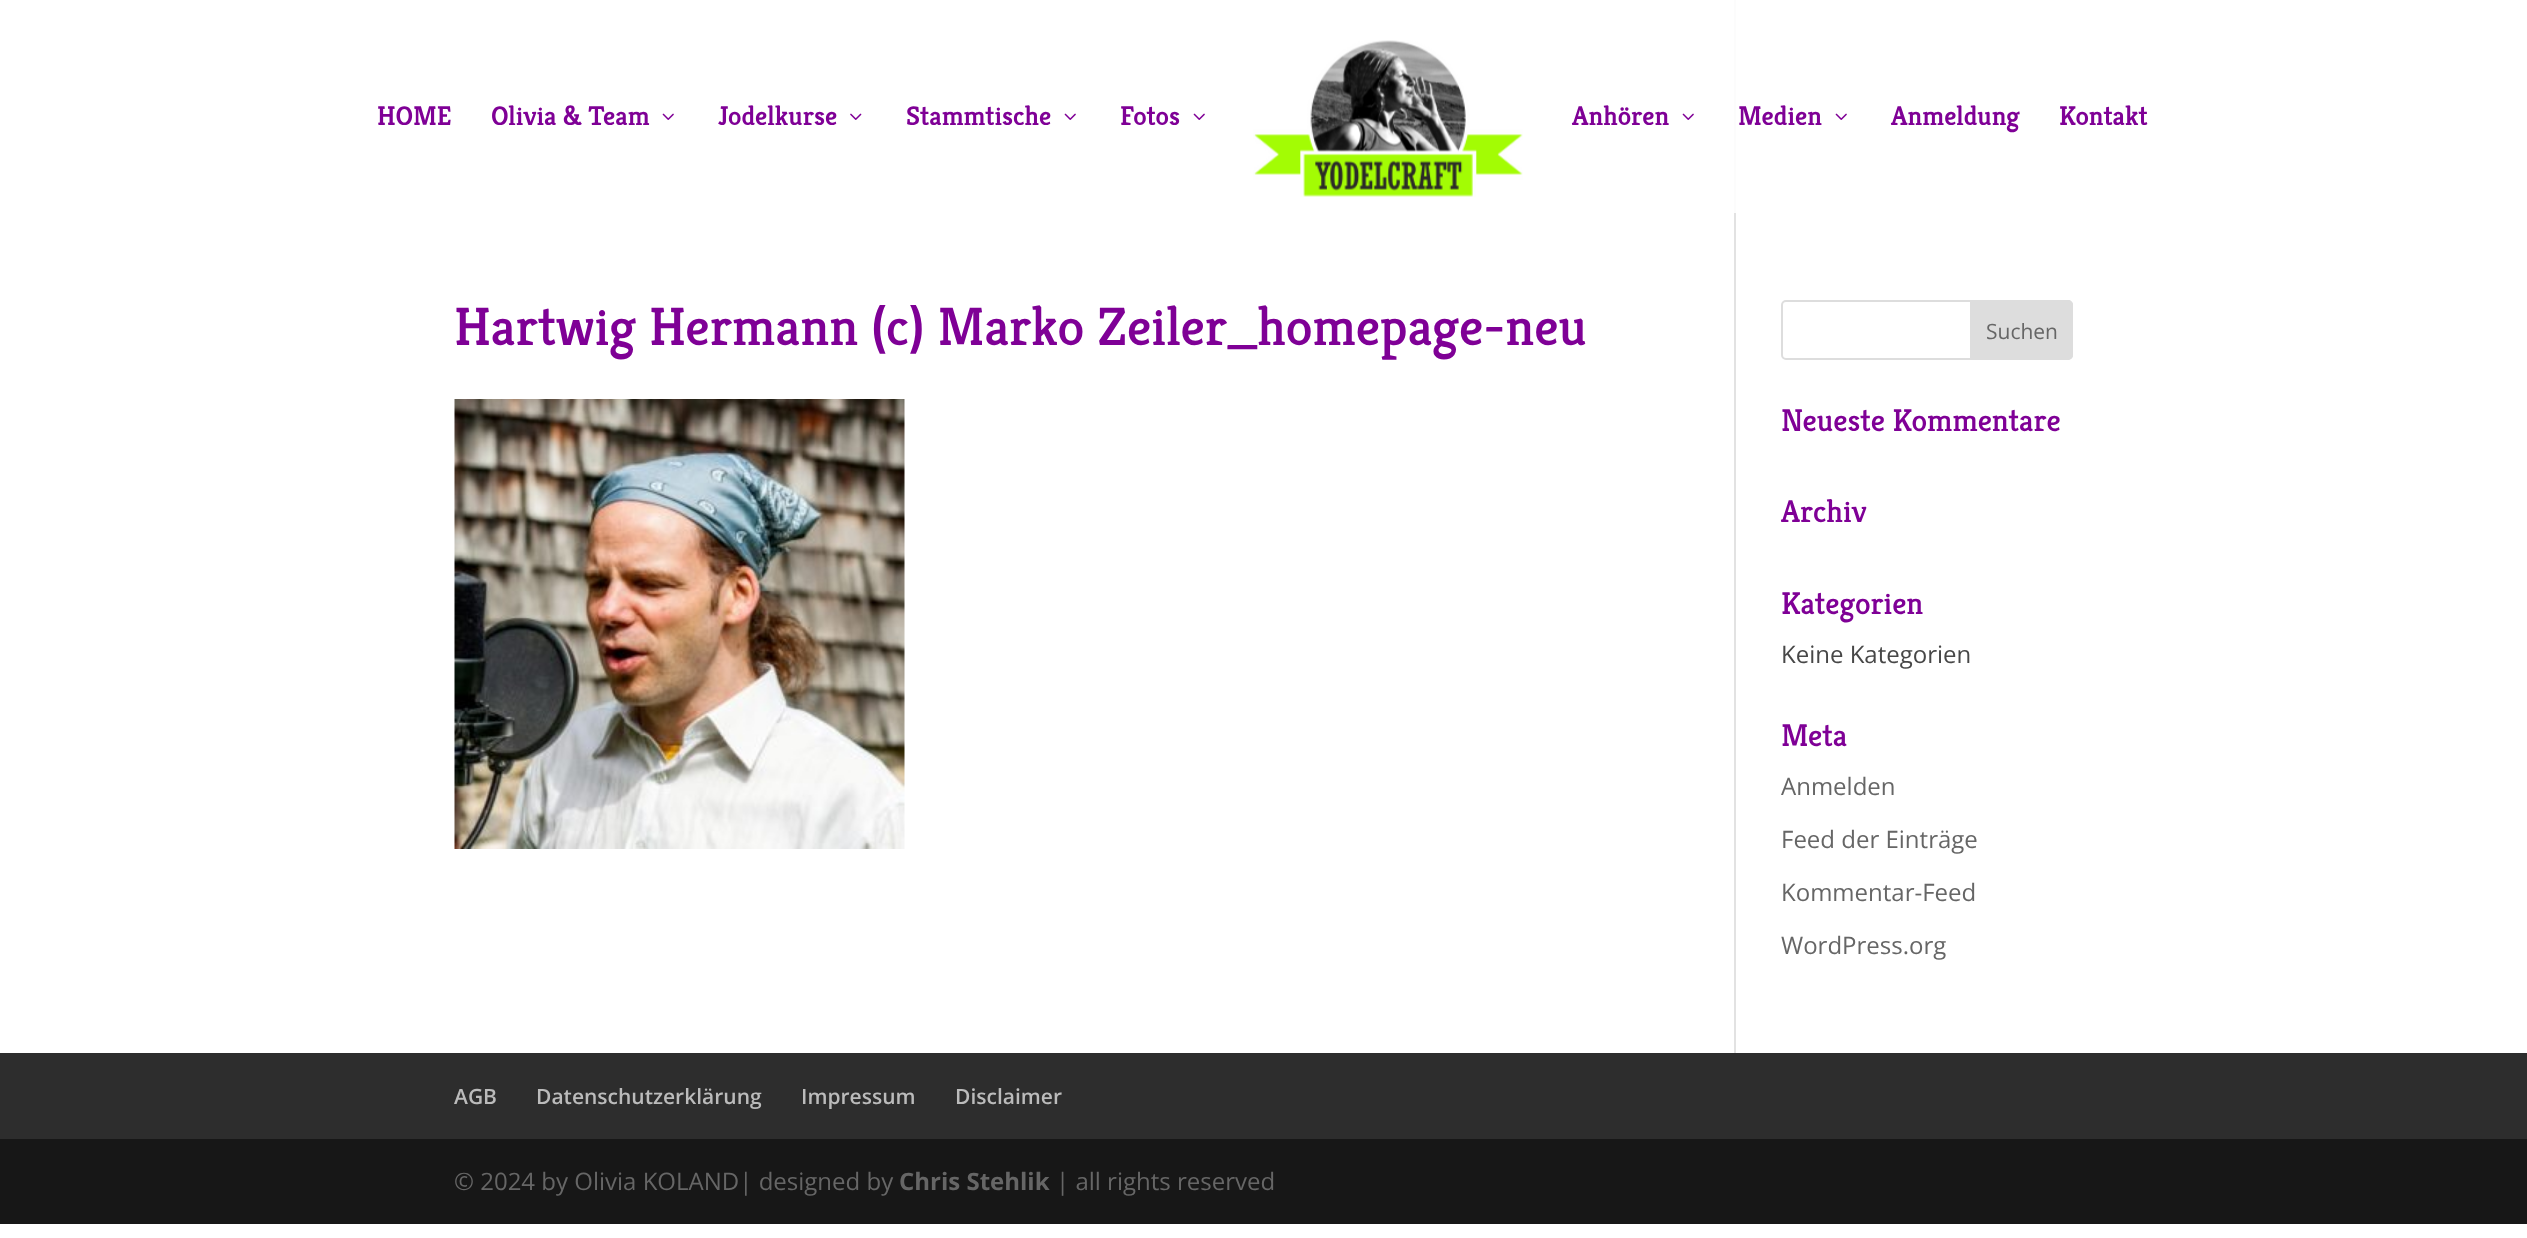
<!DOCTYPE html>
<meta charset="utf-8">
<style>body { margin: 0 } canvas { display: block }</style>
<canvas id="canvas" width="2527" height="1238"></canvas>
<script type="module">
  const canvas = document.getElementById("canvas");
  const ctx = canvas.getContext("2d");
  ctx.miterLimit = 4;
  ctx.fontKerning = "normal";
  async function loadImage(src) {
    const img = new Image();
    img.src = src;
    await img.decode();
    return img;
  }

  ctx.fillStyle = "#ffffff";
  ctx.fillRect(0, 0, 2527, 1238);
  ctx.font = "600 27px Kreon";
  ctx.fillStyle = "#7f0096";
  ctx.fillText("HOME", 377, 125);
  ctx.fillText("Olivia & Team", 491, 125);
  ctx.drawImage(await loadImage("img1.png"), 662, 113, 12, 7);
  ctx.fillText("Jodelkurse", 718, 125);
  ctx.drawImage(await loadImage("img2.png"), 850, 113, 12, 7);
  ctx.fillText("Stammtische", 906, 125);
  ctx.drawImage(await loadImage("img1.png"), 1064, 113, 12, 7);
  ctx.fillText("Fotos", 1120, 125);
  ctx.drawImage(await loadImage("img1.png"), 1193, 113, 12, 7);
  ctx.drawImage(await loadImage("img3.png"), 1253, 40, 270, 157);
  ctx.fillText("Anhören", 1572, 125);
  ctx.drawImage(await loadImage("img1.png"), 1682, 113, 12, 7);
  ctx.fillText("Medien", 1738, 125);
  ctx.drawImage(await loadImage("img1.png"), 1835, 113, 12, 7);
  ctx.fillText("Anmeldung", 1891, 125);
  ctx.fillText("Kontakt", 2059, 125);
  ctx.fillStyle = "#e2e2e2";
  ctx.fillRect(1734, 213, 2, 840);
  ctx.fillStyle = "#fcfcfc";
  ctx.fillRect(1734, 0, 2, 213);
  ctx.font = "500 54px Kreon";
  ctx.fillStyle = "#7f0096";
  ctx.fillText("Hartwig Hermann (c) Marko Zeiler_homepage-neu", 454, 345);
  ctx.drawImage(await loadImage("img4.png"), 454, 399, 451, 450);
  ctx.beginPath();
  ctx.roundRect(1782, 301, 290, 58, 4);
  ctx.strokeStyle = "#dddddd";
  ctx.lineWidth = 2;
  ctx.stroke();
  ctx.fillStyle = "#dddddd";
  ctx.beginPath();
  ctx.roundRect(1971, 301, 101, 58, [0, 4, 4, 0]);
  ctx.fill();
  ctx.stroke();
  ctx.font = "21px Open Sans";
  ctx.fillStyle = "#666666";
  ctx.fillText("Suchen", 1986, 339);
  ctx.font = "500 31.5px Kreon";
  ctx.fillStyle = "#7f0096";
  ctx.fillText("Neueste Kommentare", 1781, 431);
  ctx.fillText("Archiv", 1781, 522);
  ctx.fillText("Kategorien", 1781, 614);
  ctx.font = "24px Open Sans";
  ctx.fillStyle = "#474747";
  ctx.fillText("Keine Kategorien", 1781, 663);
  ctx.font = "500 31.5px Kreon";
  ctx.fillStyle = "#7f0096";
  ctx.fillText("Meta", 1781, 746);
  ctx.font = "24px Open Sans";
  ctx.fillStyle = "#666666";
  ctx.fillText("Anmelden", 1781, 795);
  ctx.fillText("Feed der Einträge", 1781, 848);
  ctx.fillText("Kommentar-Feed", 1781, 901);
  ctx.fillText("WordPress.org", 1781, 954);
  ctx.fillStyle = "#2d2d2d";
  ctx.fillRect(0, 1053, 2527, 86);
  ctx.font = "600 21px Open Sans";
  ctx.fillStyle = "#bbbbbb";
  ctx.fillText("AGB", 454, 1104);
  ctx.fillText("Datenschutzerklärung", 536, 1104);
  ctx.fillText("Impressum", 801, 1104);
  ctx.fillText("Disclaimer", 955, 1104);
  ctx.fillStyle = "#171717";
  ctx.fillRect(0, 1139, 2527, 85);
  ctx.font = "24px Open Sans";
  ctx.fillStyle = "#666666";
  ctx.fillText("© 2024 by Olivia KOLAND| designed by", 454, 1190);
  ctx.font = "bold 24px Open Sans";
  ctx.fillText("Chris Stehlik", 899, 1190);
  ctx.font = "24px Open Sans";
  ctx.fillText("| all rights reserved", 1056, 1190);
</script>
